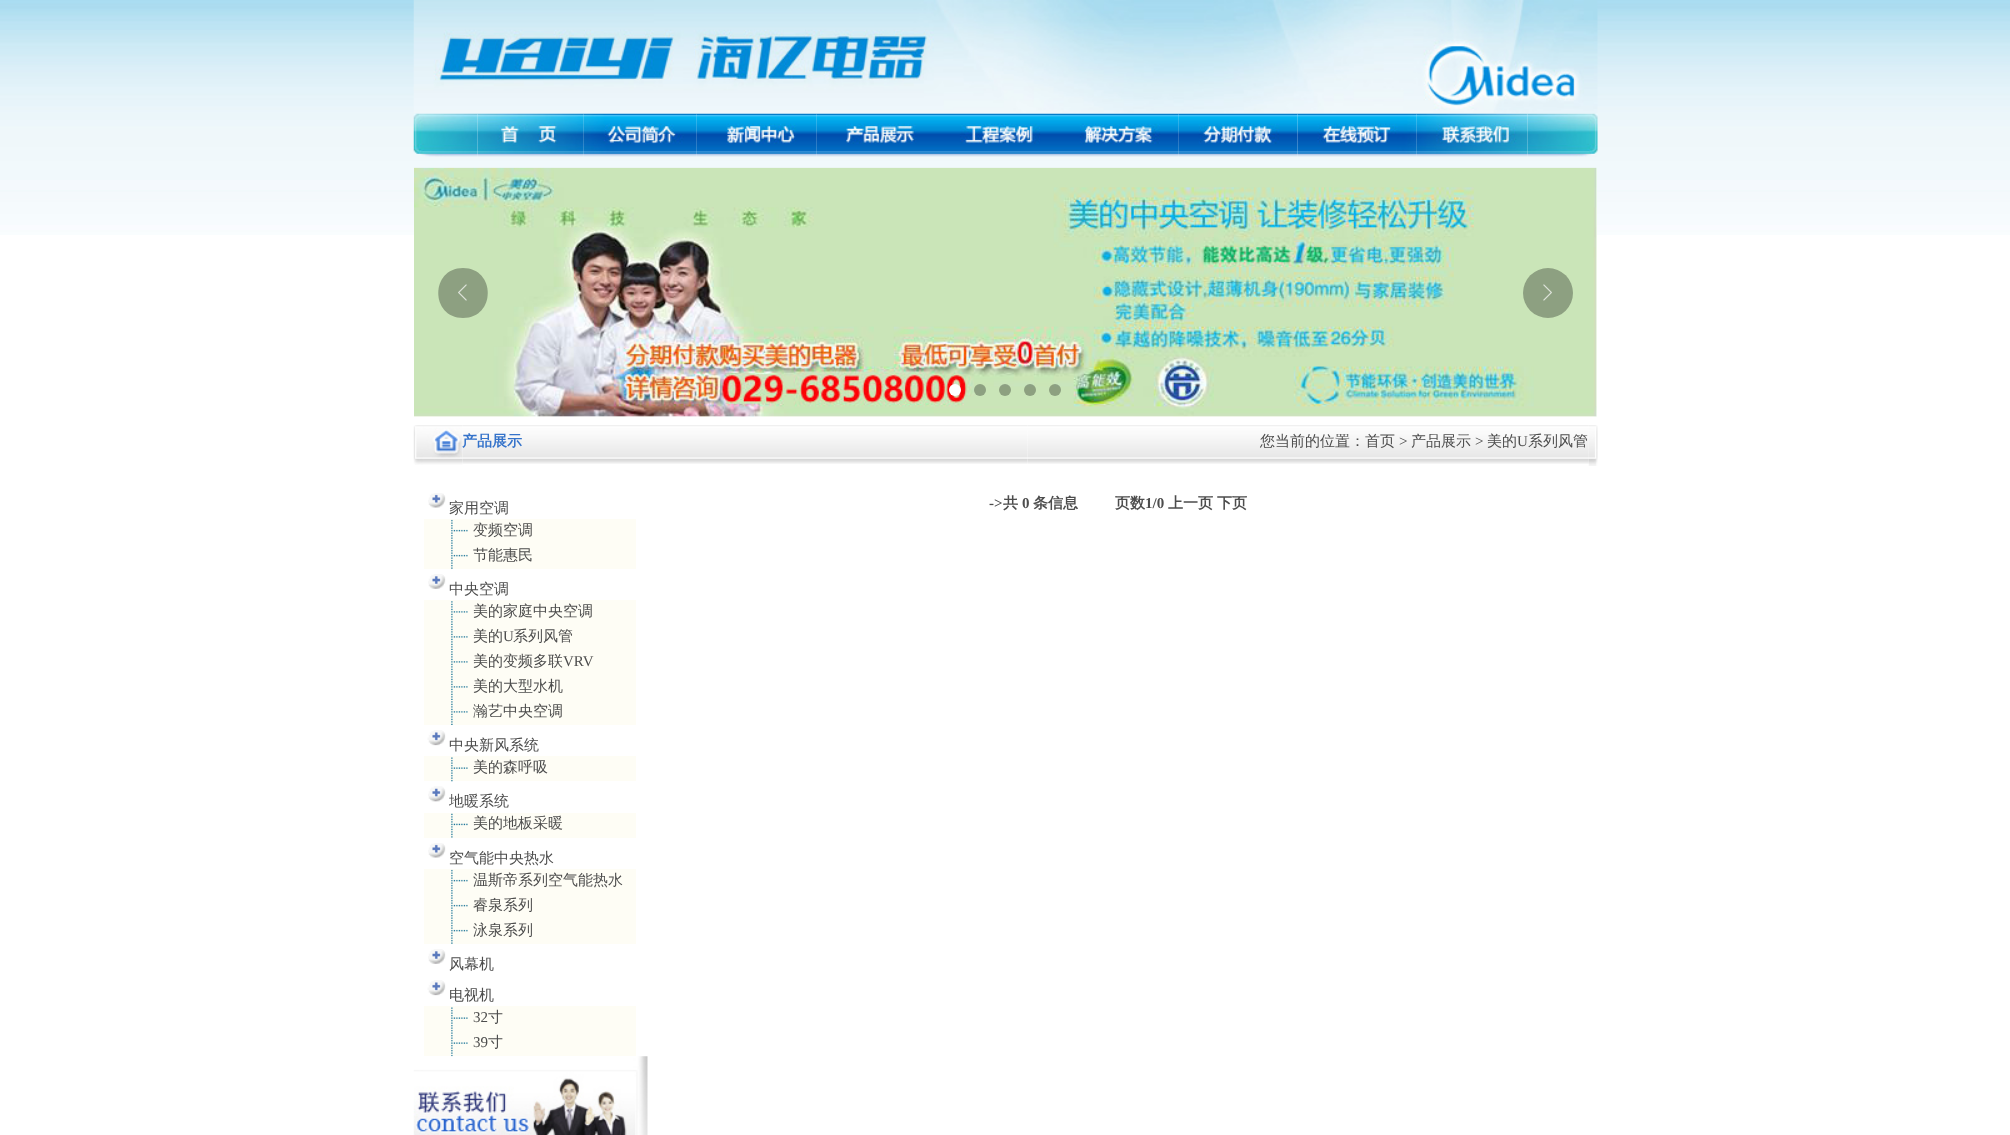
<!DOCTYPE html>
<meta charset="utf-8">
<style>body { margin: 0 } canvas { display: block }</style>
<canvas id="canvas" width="2010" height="1135"></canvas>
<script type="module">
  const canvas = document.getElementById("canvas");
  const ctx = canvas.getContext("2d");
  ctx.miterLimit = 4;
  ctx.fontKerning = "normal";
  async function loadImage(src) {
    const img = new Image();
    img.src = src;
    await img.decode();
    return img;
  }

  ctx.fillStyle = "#ffffff";
  ctx.fillRect(0, 0, 2010, 1135);
  ctx.drawImage(await loadImage("img1.png"), 0, 0, 2010, 235);
  ctx.drawImage(await loadImage("img2.png"), 413, 0, 1185, 113);
  ctx.drawImage(await loadImage("img3.png"), 413, 113, 65, 44);
  ctx.drawImage(await loadImage("img4.png"), 477, 113, 107, 44);
  ctx.drawImage(await loadImage("img5.png"), 583, 113, 114, 44);
  ctx.drawImage(await loadImage("img6.png"), 696, 113, 121, 44);
  ctx.drawImage(await loadImage("img7.png"), 816, 113, 124, 44);
  ctx.drawImage(await loadImage("img8.png"), 940, 113, 120, 44);
  ctx.drawImage(await loadImage("img9.png"), 1060, 113, 119, 44);
  ctx.drawImage(await loadImage("img10.png"), 1178, 113, 120, 44);
  ctx.drawImage(await loadImage("img11.png"), 1297, 113, 120, 44);
  ctx.drawImage(await loadImage("img12.png"), 1416, 113, 112, 44);
  ctx.drawImage(await loadImage("img13.png"), 1527, 113, 71, 44);
  ctx.drawImage(await loadImage("img14.png"), 414, 167, 1183, 250);
  ctx.fillStyle = "#8da081";
  ctx.beginPath();
  ctx.moveTo(463, 318);
  ctx.bezierCurveTo(430, 318, 430, 268, 463, 268);
  ctx.bezierCurveTo(496, 268, 496, 318, 463, 318);
  ctx.closePath();
  ctx.fill();
  ctx.drawImage(await loadImage("img15.png"), 458, 284, 9, 17);
  ctx.beginPath();
  ctx.arc(1548, 293, 25, 0, Math.PI * 2);
  ctx.fill();
  ctx.drawImage(await loadImage("img16.png"), 1543, 284, 9, 17);
  ctx.fillStyle = "#ffffff";
  ctx.beginPath();
  ctx.arc(955, 390, 6, 0, Math.PI * 2);
  ctx.fill();
  ctx.fillStyle = "#8da081";
  ctx.beginPath();
  ctx.arc(980, 390, 6, 0, Math.PI * 2);
  ctx.fill();
  ctx.fillStyle = "rgba(0, 0, 0, 0.3)";
  ctx.beginPath();
  ctx.arc(1005, 390, 6, 0, Math.PI * 2);
  ctx.fill();
  ctx.beginPath();
  ctx.arc(1030, 390, 6, 0, Math.PI * 2);
  ctx.fill();
  ctx.beginPath();
  ctx.arc(1055, 390, 6, 0, Math.PI * 2);
  ctx.fill();
  ctx.drawImage(await loadImage("img18.png"), 462, 425, 566, 39);
  ctx.drawImage(await loadImage("img17.png"), 413, 425, 50, 40);
  ctx.font = "bold 15px WenQuanYi Zen Hei";
  ctx.fillStyle = "#3573ca";
  ctx.fillText("产品展示", 462, 446);
  ctx.drawImage(await loadImage("img19.png"), 1027, 425, 562, 39);
  ctx.font = "500 15px WenQuanYi Zen Hei";
  ctx.fillStyle = "#4d4d4d";
  ctx.fillText("您当前的位置：首页", 1260, 446);
  ctx.font = "15px Liberation Serif";
  ctx.fillText(">", 1399, 446);
  ctx.font = "500 15px WenQuanYi Zen Hei";
  ctx.fillText("产品展示", 1411, 446);
  ctx.font = "15px Liberation Serif";
  ctx.fillText(">", 1475, 446);
  ctx.font = "500 15px WenQuanYi Zen Hei";
  ctx.fillText("美的", 1487, 446);
  ctx.font = "15px Liberation Serif";
  ctx.fillText("U", 1517, 446);
  ctx.font = "500 15px WenQuanYi Zen Hei";
  ctx.fillText("系列风管", 1528, 446);
  ctx.drawImage(await loadImage("img20.png"), 1588, 425, 10, 41);
  ctx.drawImage(await loadImage("img21.png"), 428, 493, 18, 15);
  ctx.fillText("家用空调", 449, 513);
  ctx.fillStyle = "#fefdf5";
  ctx.fillRect(424, 519, 212, 50);
  ctx.drawImage(await loadImage("img22.png"), 451, 519, 17, 25);
  ctx.fillStyle = "#4d4d4d";
  ctx.fillText("变频空调", 473, 535);
  ctx.drawImage(await loadImage("img22.png"), 451, 544, 17, 25);
  ctx.fillText("节能惠民", 473, 560);
  ctx.drawImage(await loadImage("img23.png"), 428, 574, 18, 15);
  ctx.fillText("中央空调", 449, 594);
  ctx.fillStyle = "#fefdf5";
  ctx.fillRect(424, 600, 212, 125);
  ctx.drawImage(await loadImage("img24.png"), 451, 601, 17, 24);
  ctx.fillStyle = "#4d4d4d";
  ctx.fillText("美的家庭中央空调", 473, 616);
  ctx.drawImage(await loadImage("img24.png"), 451, 626, 17, 24);
  ctx.fillText("美的", 473, 641);
  ctx.font = "15px Liberation Serif";
  ctx.fillText("U", 503, 641);
  ctx.font = "500 15px WenQuanYi Zen Hei";
  ctx.fillText("系列风管", 513, 641);
  ctx.drawImage(await loadImage("img24.png"), 451, 651, 17, 24);
  ctx.fillText("美的变频多联", 473, 666);
  ctx.font = "15px Liberation Serif";
  ctx.fillText("VRV", 563, 666);
  ctx.drawImage(await loadImage("img24.png"), 451, 676, 17, 24);
  ctx.font = "500 15px WenQuanYi Zen Hei";
  ctx.fillText("美的大型水机", 473, 691);
  ctx.drawImage(await loadImage("img24.png"), 451, 701, 17, 24);
  ctx.fillText("瀚艺中央空调", 473, 716);
  ctx.drawImage(await loadImage("img25.png"), 427, 730, 19, 16);
  ctx.fillText("中央新风系统", 449, 750);
  ctx.fillStyle = "#fefdf5";
  ctx.fillRect(424, 756, 212, 25);
  ctx.drawImage(await loadImage("img26.png"), 451, 757, 17, 25);
  ctx.fillStyle = "#4d4d4d";
  ctx.fillText("美的森呼吸", 473, 772);
  ctx.drawImage(await loadImage("img27.png"), 428, 786, 18, 16);
  ctx.fillText("地暖系统", 449, 806);
  ctx.fillStyle = "#fefdf5";
  ctx.fillRect(424, 813, 212, 25);
  ctx.drawImage(await loadImage("img28.png"), 451, 813, 17, 25);
  ctx.fillStyle = "#4d4d4d";
  ctx.fillText("美的地板采暖", 473, 828);
  ctx.drawImage(await loadImage("img21.png"), 428, 843, 18, 15);
  ctx.fillText("空气能中央热水", 449, 863);
  ctx.fillStyle = "#fefdf5";
  ctx.fillRect(424, 869, 212, 75);
  ctx.drawImage(await loadImage("img22.png"), 451, 869, 17, 25);
  ctx.fillStyle = "#4d4d4d";
  ctx.fillText("温斯帝系列空气能热水", 473, 885);
  ctx.drawImage(await loadImage("img22.png"), 451, 894, 17, 25);
  ctx.fillText("睿泉系列", 473, 910);
  ctx.drawImage(await loadImage("img22.png"), 451, 919, 17, 25);
  ctx.fillText("泳泉系列", 473, 935);
  ctx.drawImage(await loadImage("img23.png"), 428, 949, 18, 15);
  ctx.fillText("风幕机", 449, 969);
  ctx.drawImage(await loadImage("img25.png"), 427, 980, 19, 16);
  ctx.fillText("电视机", 449, 1000);
  ctx.fillStyle = "#fefdf5";
  ctx.fillRect(424, 1006, 212, 50);
  ctx.drawImage(await loadImage("img29.png"), 451, 1007, 17, 25);
  ctx.font = "15px Liberation Serif";
  ctx.fillStyle = "#4d4d4d";
  ctx.fillText("32", 473, 1022);
  ctx.font = "500 15px WenQuanYi Zen Hei";
  ctx.fillText("寸", 488, 1022);
  ctx.drawImage(await loadImage("img26.png"), 451, 1032, 17, 25);
  ctx.font = "15px Liberation Serif";
  ctx.fillText("39", 473, 1047);
  ctx.font = "500 15px WenQuanYi Zen Hei";
  ctx.fillText("寸", 488, 1047);
  ctx.drawImage(await loadImage("img30.png"), 413, 1056, 235, 79);
  ctx.font = "bold 15px Liberation Serif";
  ctx.fillText("->", 989, 508);
  ctx.font = "bold 15px WenQuanYi Zen Hei";
  ctx.fillText("共", 1003, 508);
  ctx.font = "bold 15px Liberation Serif";
  ctx.fillText("0", 1022, 508);
  ctx.font = "bold 15px WenQuanYi Zen Hei";
  ctx.fillText("条信息", 1033, 508);
  ctx.fillText("页数", 1115, 508);
  ctx.font = "bold 15px Liberation Serif";
  ctx.fillText("1/0", 1145, 508);
  ctx.font = "bold 15px WenQuanYi Zen Hei";
  ctx.fillText("上一页", 1168, 508);
  ctx.fillText("下页", 1217, 508);
</script>
